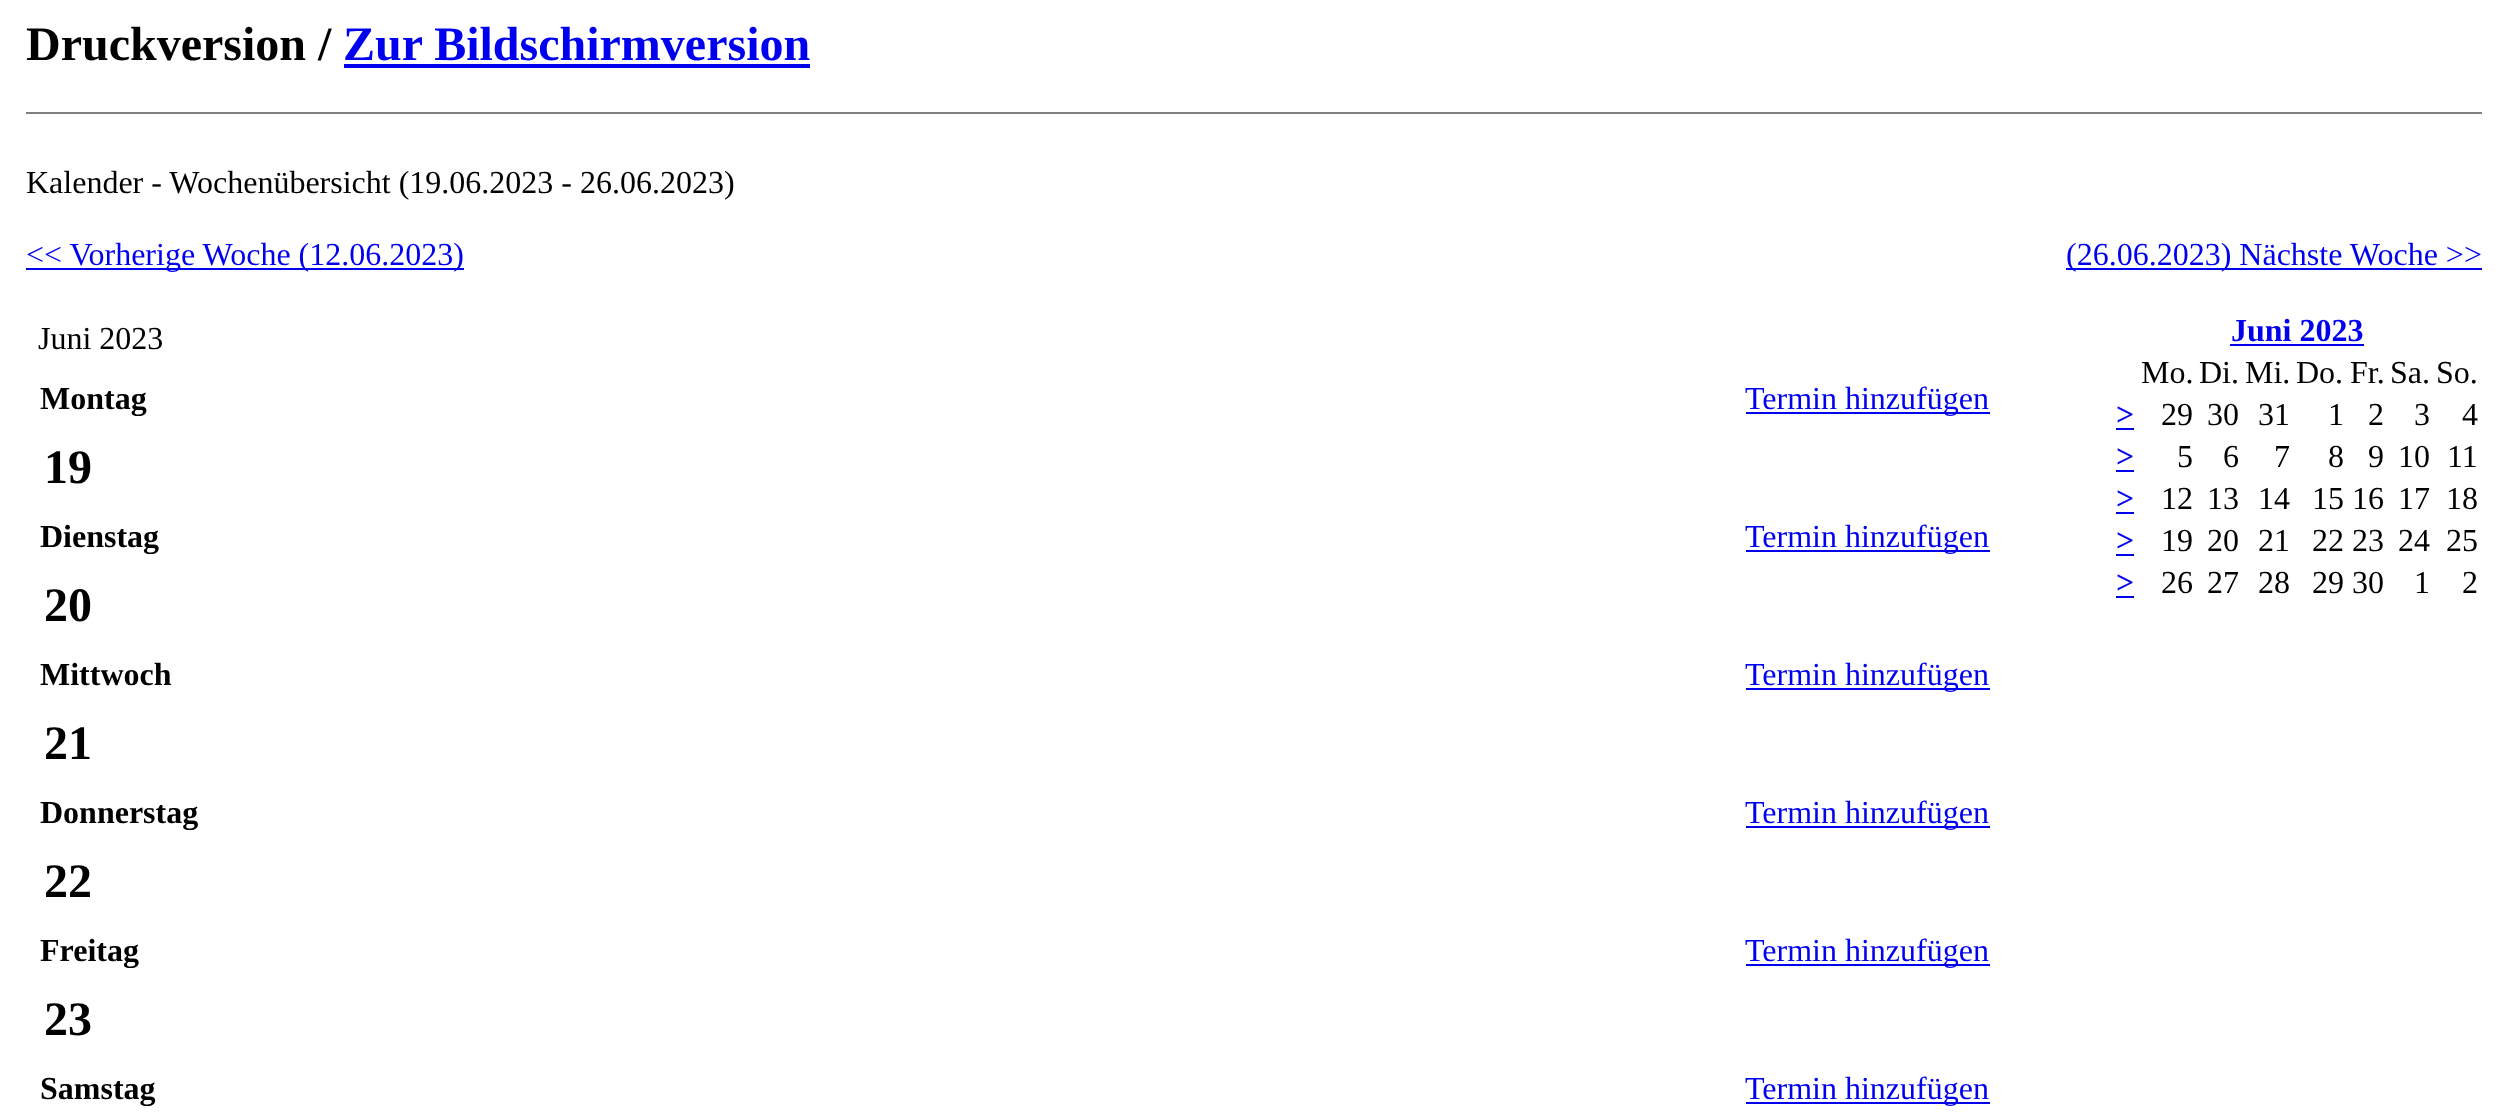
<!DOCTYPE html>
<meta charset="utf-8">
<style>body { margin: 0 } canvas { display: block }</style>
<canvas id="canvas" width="2508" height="1116"></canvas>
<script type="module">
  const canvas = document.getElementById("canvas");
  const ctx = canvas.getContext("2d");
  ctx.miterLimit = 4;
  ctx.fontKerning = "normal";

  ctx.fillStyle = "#ffffff";
  ctx.fillRect(0, 0, 2508, 1116);
  ctx.font = "bold 48px Liberation Serif";
  ctx.fillStyle = "#000000";
  ctx.fillText("Druckversion /", 26, 60);
  ctx.fillStyle = "#0000ee";
  ctx.fillText("Zur Bildschirmversion", 343, 60);
  ctx.fillRect(344, 64, 466, 4);
  ctx.fillStyle = "#808080";
  ctx.fillRect(26, 112, 2456, 2);
  ctx.font = "32px Liberation Serif";
  ctx.fillStyle = "#000000";
  ctx.fillText("Kalender - Wochenübersicht (19.06.2023 - 26.06.2023)", 26, 193);
  ctx.fillStyle = "#0000ee";
  ctx.fillRect(26, 268, 438, 2);
  ctx.fillText("<< Vorherige Woche (12.06.2023)", 26, 265);
  ctx.fillRect(2066, 268, 416, 2);
  ctx.fillText("(26.06.2023) Nächste Woche >>", 2066, 265);
  ctx.fillStyle = "#000000";
  ctx.fillText("Juni 2023", 38, 349);
  ctx.font = "bold 32px Liberation Serif";
  ctx.fillText("Montag", 40, 409);
  ctx.fillStyle = "#0000ee";
  ctx.fillRect(1746, 412, 244, 2);
  ctx.font = "32px Liberation Serif";
  ctx.fillText("Termin hinzufügen", 1745, 409);
  ctx.font = "bold 48px Liberation Serif";
  ctx.fillStyle = "#000000";
  ctx.fillText("19", 44, 483);
  ctx.font = "bold 32px Liberation Serif";
  ctx.fillText("Dienstag", 40, 547);
  ctx.fillStyle = "#0000ee";
  ctx.fillRect(1746, 550, 244, 2);
  ctx.font = "32px Liberation Serif";
  ctx.fillText("Termin hinzufügen", 1745, 547);
  ctx.font = "bold 48px Liberation Serif";
  ctx.fillStyle = "#000000";
  ctx.fillText("20", 44, 621);
  ctx.font = "bold 32px Liberation Serif";
  ctx.fillText("Mittwoch", 40, 685);
  ctx.fillStyle = "#0000ee";
  ctx.fillRect(1746, 688, 244, 2);
  ctx.font = "32px Liberation Serif";
  ctx.fillText("Termin hinzufügen", 1745, 685);
  ctx.font = "bold 48px Liberation Serif";
  ctx.fillStyle = "#000000";
  ctx.fillText("21", 44, 759);
  ctx.font = "bold 32px Liberation Serif";
  ctx.fillText("Donnerstag", 40, 823);
  ctx.fillStyle = "#0000ee";
  ctx.fillRect(1746, 826, 244, 2);
  ctx.font = "32px Liberation Serif";
  ctx.fillText("Termin hinzufügen", 1745, 823);
  ctx.font = "bold 48px Liberation Serif";
  ctx.fillStyle = "#000000";
  ctx.fillText("22", 44, 897);
  ctx.font = "bold 32px Liberation Serif";
  ctx.fillText("Freitag", 40, 961);
  ctx.fillStyle = "#0000ee";
  ctx.fillRect(1746, 964, 244, 2);
  ctx.font = "32px Liberation Serif";
  ctx.fillText("Termin hinzufügen", 1745, 961);
  ctx.font = "bold 48px Liberation Serif";
  ctx.fillStyle = "#000000";
  ctx.fillText("23", 44, 1035);
  ctx.font = "bold 32px Liberation Serif";
  ctx.fillText("Samstag", 40, 1099);
  ctx.fillStyle = "#0000ee";
  ctx.fillRect(1746, 1102, 244, 2);
  ctx.font = "32px Liberation Serif";
  ctx.fillText("Termin hinzufügen", 1745, 1099);
  ctx.font = "bold 32px Liberation Serif";
  ctx.fillText("Juni 2023", 2231, 341);
  ctx.fillRect(2230, 344, 134, 2);
  ctx.font = "32px Liberation Serif";
  ctx.fillStyle = "#000000";
  ctx.fillText("Mo.", 2141, 383);
  ctx.fillText("Di.", 2199, 383);
  ctx.fillText("Mi.", 2245, 383);
  ctx.fillText("Do.", 2296, 383);
  ctx.fillText("Fr.", 2350, 383);
  ctx.fillText("Sa.", 2390, 383);
  ctx.fillText("So.", 2436, 383);
  ctx.font = "bold 32px Liberation Serif";
  ctx.fillStyle = "#0000ee";
  ctx.fillText(">", 2116, 425);
  ctx.fillRect(2116, 428, 18, 2);
  ctx.font = "32px Liberation Serif";
  ctx.fillStyle = "#000000";
  ctx.fillText("29", 2161, 425);
  ctx.fillText("30", 2207, 425);
  ctx.fillText("31", 2258, 425);
  ctx.fillText("1", 2328, 425);
  ctx.fillText("2", 2368, 425);
  ctx.fillText("3", 2414, 425);
  ctx.fillText("4", 2462, 425);
  ctx.font = "bold 32px Liberation Serif";
  ctx.fillStyle = "#0000ee";
  ctx.fillText(">", 2116, 467);
  ctx.fillRect(2116, 470, 18, 2);
  ctx.font = "32px Liberation Serif";
  ctx.fillStyle = "#000000";
  ctx.fillText("5", 2177, 467);
  ctx.fillText("6", 2223, 467);
  ctx.fillText("7", 2274, 467);
  ctx.fillText("8", 2328, 467);
  ctx.fillText("9", 2368, 467);
  ctx.fillText("10", 2398, 467);
  ctx.fillText("11", 2447, 467);
  ctx.font = "bold 32px Liberation Serif";
  ctx.fillStyle = "#0000ee";
  ctx.fillText(">", 2116, 509);
  ctx.fillRect(2116, 512, 18, 2);
  ctx.font = "32px Liberation Serif";
  ctx.fillStyle = "#000000";
  ctx.fillText("12", 2161, 509);
  ctx.fillText("13", 2207, 509);
  ctx.fillText("14", 2258, 509);
  ctx.fillText("15", 2312, 509);
  ctx.fillText("16", 2352, 509);
  ctx.fillText("17", 2398, 509);
  ctx.fillText("18", 2446, 509);
  ctx.font = "bold 32px Liberation Serif";
  ctx.fillStyle = "#0000ee";
  ctx.fillText(">", 2116, 551);
  ctx.fillRect(2116, 554, 18, 2);
  ctx.font = "32px Liberation Serif";
  ctx.fillStyle = "#000000";
  ctx.fillText("19", 2161, 551);
  ctx.fillText("20", 2207, 551);
  ctx.fillText("21", 2258, 551);
  ctx.fillText("22", 2312, 551);
  ctx.fillText("23", 2352, 551);
  ctx.fillText("24", 2398, 551);
  ctx.fillText("25", 2446, 551);
  ctx.font = "bold 32px Liberation Serif";
  ctx.fillStyle = "#0000ee";
  ctx.fillText(">", 2116, 593);
  ctx.fillRect(2116, 596, 18, 2);
  ctx.font = "32px Liberation Serif";
  ctx.fillStyle = "#000000";
  ctx.fillText("26", 2161, 593);
  ctx.fillText("27", 2207, 593);
  ctx.fillText("28", 2258, 593);
  ctx.fillText("29", 2312, 593);
  ctx.fillText("30", 2352, 593);
  ctx.fillText("1", 2414, 593);
  ctx.fillText("2", 2462, 593);
</script>
